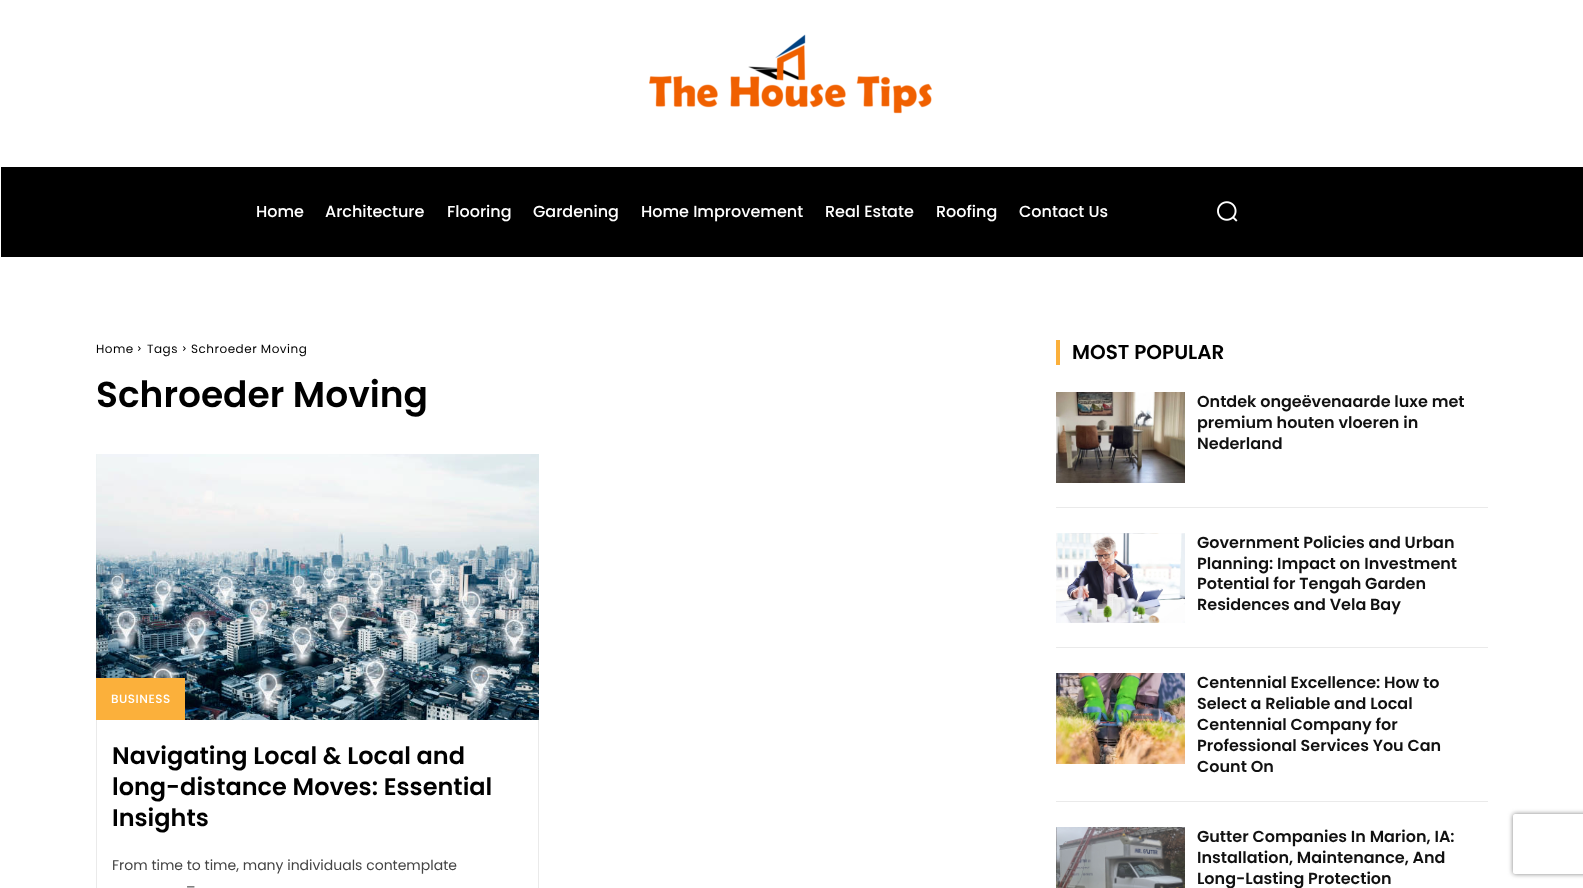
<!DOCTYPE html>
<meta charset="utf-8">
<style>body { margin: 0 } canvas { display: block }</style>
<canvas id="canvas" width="1583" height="888"></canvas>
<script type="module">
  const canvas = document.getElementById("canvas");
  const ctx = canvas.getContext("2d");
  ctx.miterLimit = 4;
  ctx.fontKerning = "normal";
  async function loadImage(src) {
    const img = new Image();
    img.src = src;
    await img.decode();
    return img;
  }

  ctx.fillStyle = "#ffffff";
  ctx.fillRect(0, 0, 1583, 888);
  ctx.drawImage(await loadImage("img1.png"), 649, 34, 283, 80);
  ctx.fillStyle = "#000000";
  ctx.fillRect(1, 167, 1582, 90);
  ctx.font = "500 16px Poppins";
  ctx.fillStyle = "#ffffff";
  ctx.fillText("Home", 256, 217);
  ctx.fillText("Architecture", 325, 217);
  ctx.fillText("Flooring", 447, 217);
  ctx.fillText("Gardening", 533, 217);
  ctx.fillText("Home Improvement", 641, 217);
  ctx.fillText("Real Estate", 825, 217);
  ctx.fillText("Roofing", 936, 217);
  ctx.fillText("Contact Us", 1019, 217);
  ctx.drawImage(await loadImage("img2.png"), 1217, 201, 21, 21);
  ctx.letterSpacing = "0.5px";
  ctx.font = "12px Poppins";
  ctx.fillStyle = "#000000";
  ctx.fillText("Home", 96, 353);
  ctx.drawImage(await loadImage("img3.png"), 138, 346, 3, 5);
  ctx.fillText("Tags", 147, 353);
  ctx.drawImage(await loadImage("img3.png"), 183, 346, 3, 5);
  ctx.fillText("Schroeder Moving", 191, 353);
  ctx.letterSpacing = "0px";
  ctx.font = "600 36px Poppins";
  ctx.fillText("Schroeder Moving", 96, 407);
  ctx.drawImage(await loadImage("img4.png"), 96, 454, 443, 266);
  ctx.fillStyle = "#fbb03b";
  ctx.fillRect(96, 678, 89, 42);
  ctx.letterSpacing = "0.5px";
  ctx.font = "500 12px Poppins";
  ctx.fillStyle = "#ffffff";
  ctx.fillText("BUSINESS", 111, 703);
  ctx.fillStyle = "#eaeaea";
  ctx.fillRect(538, 720, 1, 168);
  ctx.fillRect(96, 720, 1, 168);
  ctx.letterSpacing = "0px";
  ctx.font = "600 24px Poppins";
  ctx.fillStyle = "#000000";
  ctx.fillText("Navigating Local & Local and", 112, 764);
  ctx.fillText("long-distance Moves: Essential", 112, 795);
  ctx.fillText("Insights", 112, 826);
  ctx.font = "14px Poppins";
  ctx.fillStyle = "#444444";
  ctx.fillText("From time to time, many individuals contemplate", 112, 870);
  ctx.fillText("–", 186, 892);
  ctx.fillStyle = "#fbb03b";
  ctx.fillRect(1056, 340, 4, 25);
  ctx.font = "600 20px Poppins";
  ctx.fillStyle = "#000000";
  ctx.fillText("MOST POPULAR", 1072, 359);
  ctx.drawImage(await loadImage("img5.png"), 1056, 392, 129, 91);
  ctx.font = "600 16px Poppins";
  ctx.fillStyle = "#111111";
  ctx.fillText("Ontdek ongeëvenaarde luxe met", 1197, 407);
  ctx.fillText("premium houten vloeren in", 1197, 428);
  ctx.fillText("Nederland", 1197, 449);
  ctx.fillStyle = "#eaeaea";
  ctx.fillRect(1056, 507, 432, 1);
  ctx.drawImage(await loadImage("img6.png"), 1056, 533, 129, 90);
  ctx.fillStyle = "#111111";
  ctx.fillText("Government Policies and Urban", 1197, 548);
  ctx.fillText("Planning: Impact on Investment", 1197, 569);
  ctx.fillText("Potential for Tengah Garden", 1197, 589);
  ctx.fillText("Residences and Vela Bay", 1197, 610);
  ctx.fillStyle = "#eaeaea";
  ctx.fillRect(1056, 647, 432, 1);
  ctx.drawImage(await loadImage("img7.png"), 1056, 673, 129, 91);
  ctx.fillStyle = "#111111";
  ctx.fillText("Centennial Excellence: How to", 1197, 688);
  ctx.fillText("Select a Reliable and Local", 1197, 709);
  ctx.fillText("Centennial Company for", 1197, 730);
  ctx.fillText("Professional Services You Can", 1197, 751);
  ctx.fillText("Count On", 1197, 772);
  ctx.fillStyle = "#eaeaea";
  ctx.fillRect(1056, 801, 432, 1);
  ctx.drawImage(await loadImage("img8.png"), 1056, 827, 129, 61);
  ctx.fillStyle = "#111111";
  ctx.fillText("Gutter Companies In Marion, IA:", 1197, 842);
  ctx.fillText("Installation, Maintenance, And", 1197, 863);
  ctx.fillText("Long-Lasting Protection", 1197, 884);
  ctx.save();
  ctx.beginPath();
  ctx.moveTo(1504, 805);
  ctx.lineTo(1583, 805);
  ctx.lineTo(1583, 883);
  ctx.lineTo(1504, 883);
  ctx.closePath();
  ctx.moveTo(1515, 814);
  ctx.lineTo(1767, 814);
  ctx.bezierCurveTo(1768, 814, 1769, 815, 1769, 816);
  ctx.lineTo(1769, 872);
  ctx.bezierCurveTo(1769, 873, 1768, 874, 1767, 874);
  ctx.lineTo(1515, 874);
  ctx.bezierCurveTo(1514, 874, 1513, 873, 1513, 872);
  ctx.lineTo(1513, 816);
  ctx.bezierCurveTo(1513, 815, 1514, 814, 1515, 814);
  ctx.closePath();
  ctx.clip("evenodd");
  ctx.fillStyle = "#808080";
  ctx.filter = "blur(2.5px)";
  ctx.beginPath();
  ctx.roundRect(1513, 814, 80, 60, 2);
  ctx.fill();
  ctx.filter = "none";
  ctx.restore();
</script>
